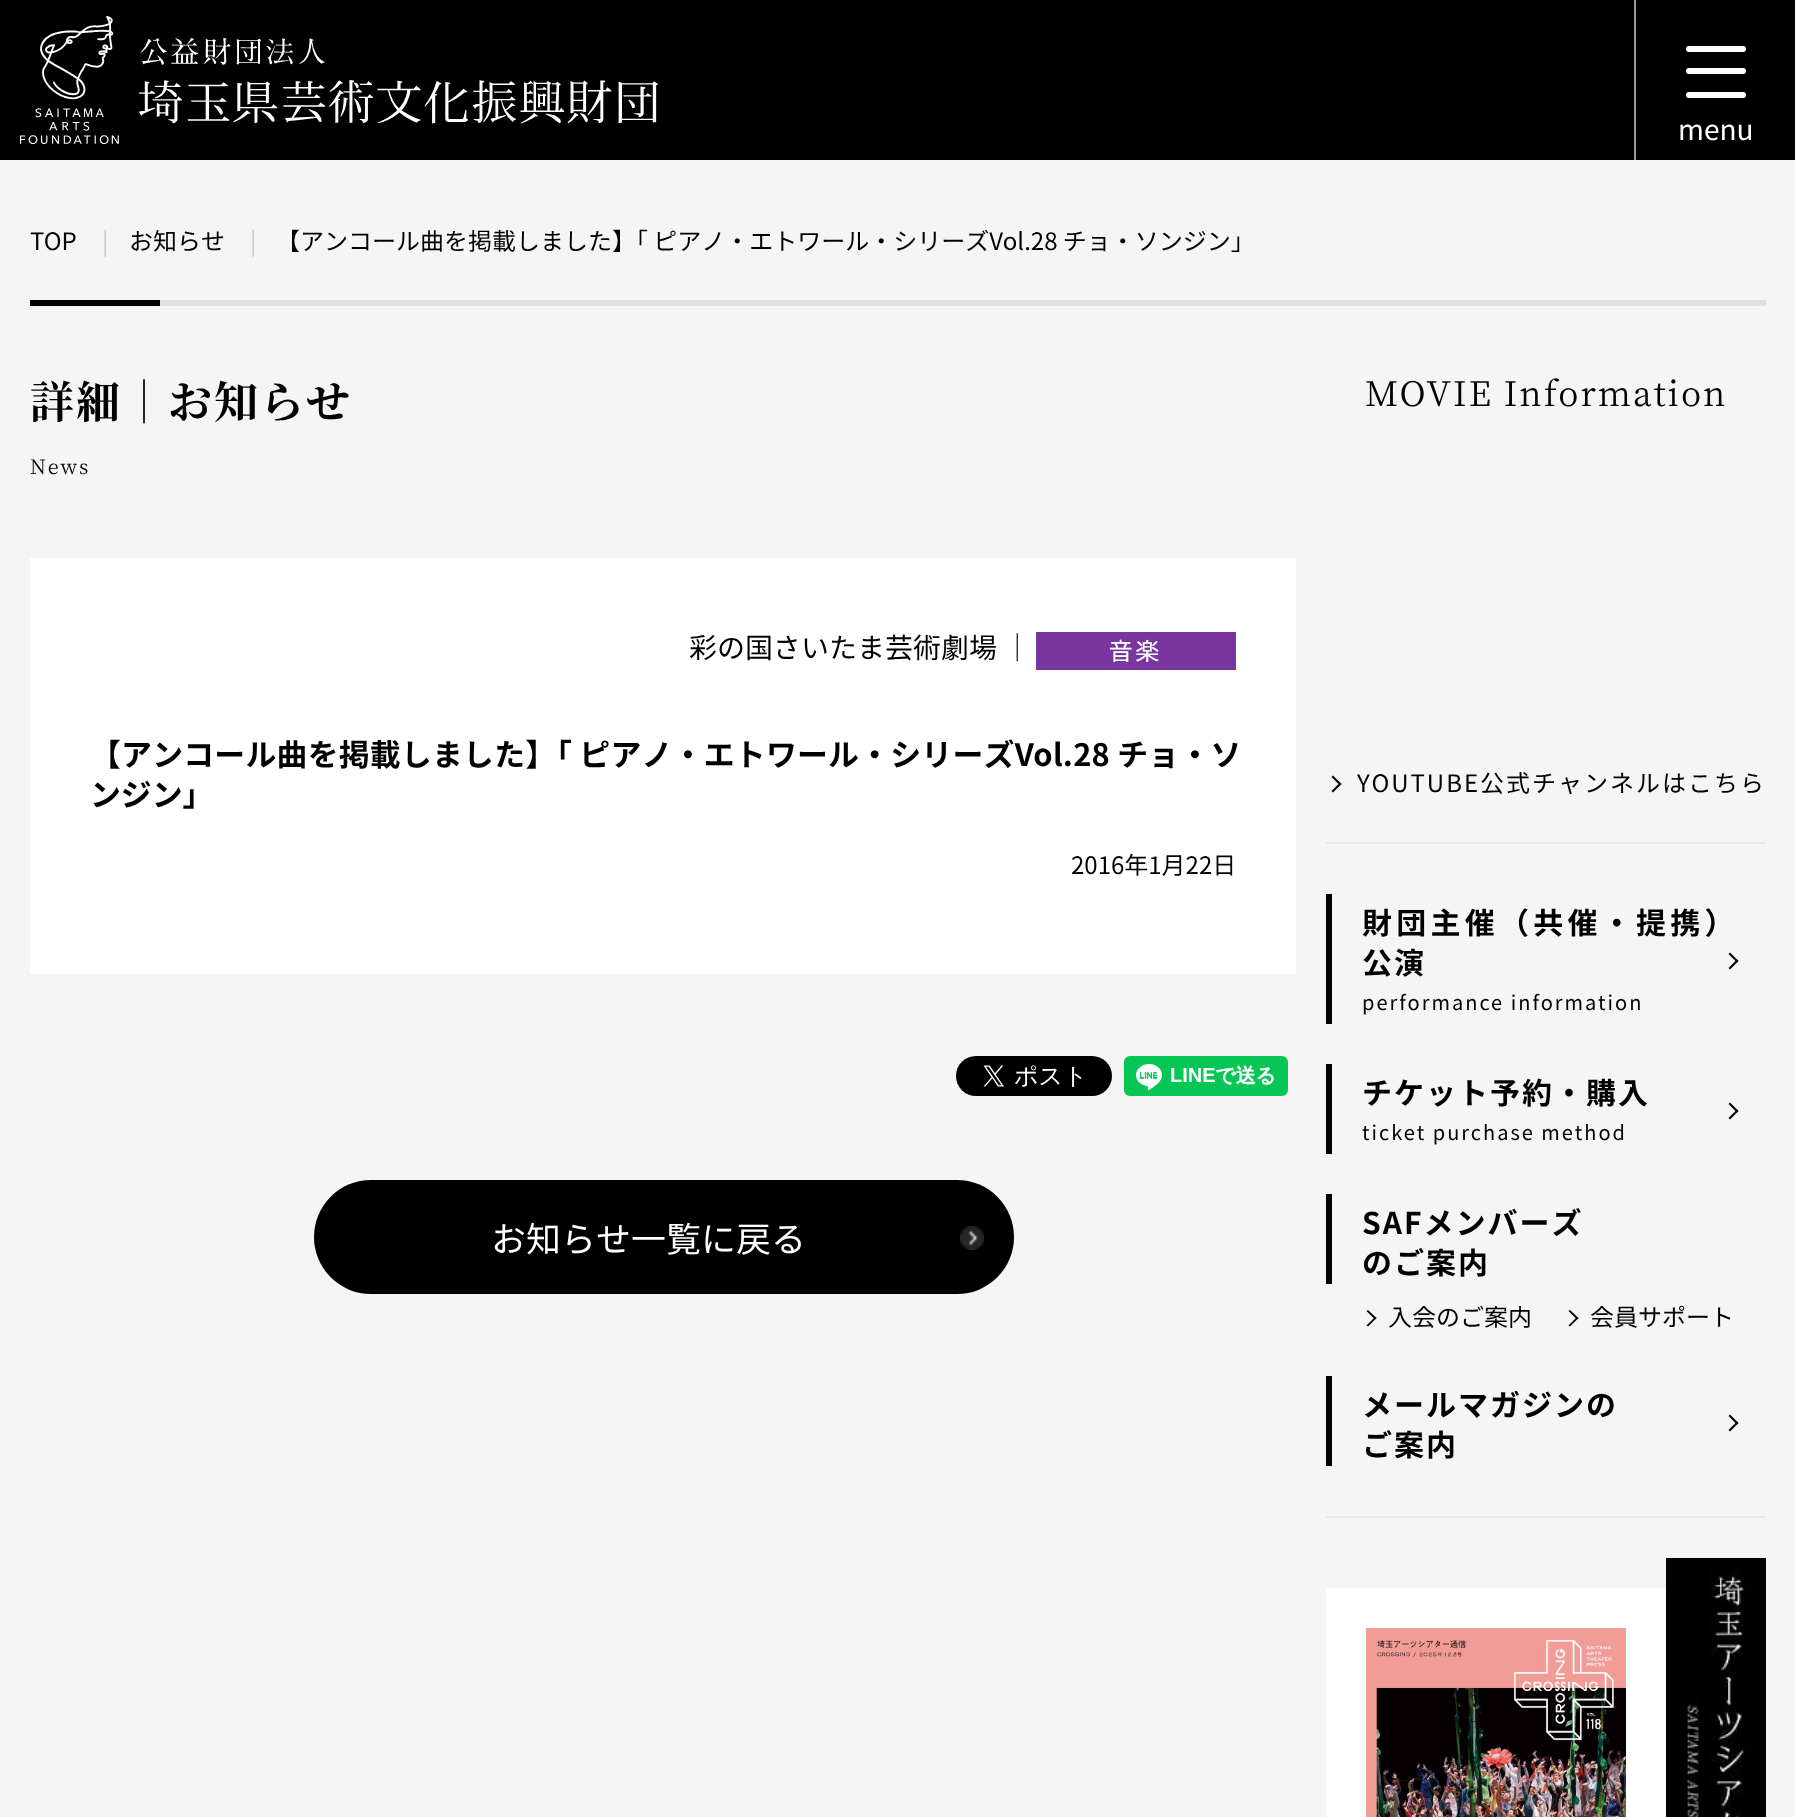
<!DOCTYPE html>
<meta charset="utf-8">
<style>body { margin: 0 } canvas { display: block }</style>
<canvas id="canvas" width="1795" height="1817"></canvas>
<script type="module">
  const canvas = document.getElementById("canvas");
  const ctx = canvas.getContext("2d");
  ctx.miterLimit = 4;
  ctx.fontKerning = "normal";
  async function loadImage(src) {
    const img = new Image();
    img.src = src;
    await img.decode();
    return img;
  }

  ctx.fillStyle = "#f5f5f5";
  ctx.fillRect(0, 0, 1795, 1817);
  ctx.fillStyle = "#000000";
  ctx.fillRect(0, 0, 1795, 160);
  ctx.drawImage(await loadImage("img1.png"), 20, 16, 638, 128);
  ctx.fillStyle = "#999999";
  ctx.fillRect(1634, 0, 2, 160);
  ctx.fillStyle = "#ffffff";
  ctx.beginPath();
  ctx.roundRect(1686, 46, 60, 6, 3);
  ctx.fill();
  ctx.beginPath();
  ctx.roundRect(1686, 68, 60, 6, 3);
  ctx.fill();
  ctx.beginPath();
  ctx.roundRect(1686, 92, 60, 6, 3);
  ctx.fill();
  ctx.font = "28px Noto Sans JP";
  ctx.fillText("menu", 1678, 140);
  ctx.font = "24px Noto Sans JP";
  ctx.fillStyle = "#000000";
  ctx.fillText("TOP", 30, 250);
  ctx.fillStyle = "#cccccc";
  ctx.fillText("|", 102, 250);
  ctx.fillStyle = "#000000";
  ctx.fillText("お知らせ", 129, 250);
  ctx.fillStyle = "#cccccc";
  ctx.fillText("|", 250, 250);
  ctx.fillStyle = "#000000";
  ctx.fillText("【アンコール曲を掲載しました】｢ ピアノ・エトワール・シリーズVol.28 チョ・ソンジン｣", 276, 250);
  ctx.fillRect(30, 300, 130, 6);
  ctx.fillStyle = "#e0e0e0";
  ctx.fillRect(160, 300, 1606, 6);
  ctx.letterSpacing = "2px";
  ctx.font = "bold 44px Noto Serif JP";
  ctx.fillStyle = "#000000";
  ctx.fillText("詳細｜お知らせ", 30, 418);
  ctx.font = "20px Noto Serif JP";
  ctx.fillText("News", 30, 474);
  ctx.fillStyle = "#ffffff";
  ctx.fillRect(30, 558, 1266, 416);
  ctx.letterSpacing = "0px";
  ctx.font = "28px Noto Sans JP";
  ctx.fillStyle = "#000000";
  ctx.fillText("彩の国さいたま芸術劇場 ｜", 689, 658);
  ctx.drawImage(await loadImage("img2.png"), 1036, 632, 200, 38);
  ctx.letterSpacing = "0.25px";
  ctx.font = "bold 30.85px Noto Sans JP";
  ctx.fillText("【アンコール曲を掲載しました】｢ ピアノ・エトワール・シリーズVol.28 チョ・ソ", 90, 766);
  ctx.letterSpacing = "0px";
  ctx.fillText("ンジン｣", 90, 806);
  ctx.font = "24px Noto Sans JP";
  ctx.fillText("2016年1月22日", 1071, 874);
  ctx.drawImage(await loadImage("img3.png"), 956, 1056, 156, 40);
  ctx.drawImage(await loadImage("img4.png"), 1124, 1056, 164, 40);
  ctx.beginPath();
  ctx.roundRect(314, 1180, 700, 114, 57);
  ctx.fill();
  ctx.drawImage(await loadImage("img5.png"), 960, 1226, 24, 24);
  ctx.font = "35px Noto Sans JP";
  ctx.fillStyle = "#ffffff";
  ctx.fillText("お知らせ一覧に戻る", 491, 1252);
  ctx.letterSpacing = "2px";
  ctx.font = "34px Noto Serif JP";
  ctx.fillStyle = "#000000";
  ctx.fillText("MOVIE Information", 1365, 406);
  ctx.beginPath();
  ctx.moveTo(1333, 775.5);
  ctx.lineTo(1341.5, 784);
  ctx.lineTo(1340, 785.5);
  ctx.lineTo(1331.5, 777);
  ctx.closePath();
  ctx.fill();
  ctx.beginPath();
  ctx.moveTo(1340, 782.5);
  ctx.lineTo(1341.5, 784);
  ctx.lineTo(1333, 792.5);
  ctx.lineTo(1331.5, 791);
  ctx.closePath();
  ctx.fill();
  ctx.font = "24px Noto Sans JP";
  ctx.fillText("YOUTUBE公式チャンネルはこちら", 1357, 792);
  ctx.fillStyle = "#e9e9e9";
  ctx.fillRect(1326, 842, 440, 2);
  ctx.fillStyle = "#000000";
  ctx.fillRect(1326, 894, 6, 130);
  ctx.letterSpacing = "4.25px";
  ctx.font = "bold 30px Noto Sans JP";
  ctx.fillText("財団主催（共催・提携）", 1362, 934);
  ctx.letterSpacing = "2px";
  ctx.fillText("公演", 1362, 974);
  ctx.beginPath();
  ctx.moveTo(1730, 952.5);
  ctx.lineTo(1738.5, 961);
  ctx.lineTo(1737, 962.5);
  ctx.lineTo(1728.5, 954);
  ctx.closePath();
  ctx.fill();
  ctx.beginPath();
  ctx.moveTo(1737, 959.5);
  ctx.lineTo(1738.5, 961);
  ctx.lineTo(1730, 969.5);
  ctx.lineTo(1728.5, 968);
  ctx.closePath();
  ctx.fill();
  ctx.font = "20px Noto Sans JP";
  ctx.fillText("performance information", 1362, 1010);
  ctx.fillRect(1326, 1064, 6, 90);
  ctx.font = "bold 30px Noto Sans JP";
  ctx.fillText("チケット予約・購入", 1362, 1104);
  ctx.beginPath();
  ctx.moveTo(1730, 1102.5);
  ctx.lineTo(1738.5, 1111);
  ctx.lineTo(1737, 1112.5);
  ctx.lineTo(1728.5, 1104);
  ctx.closePath();
  ctx.fill();
  ctx.beginPath();
  ctx.moveTo(1737, 1109.5);
  ctx.lineTo(1738.5, 1111);
  ctx.lineTo(1730, 1119.5);
  ctx.lineTo(1728.5, 1118);
  ctx.closePath();
  ctx.fill();
  ctx.font = "20px Noto Sans JP";
  ctx.fillText("ticket purchase method", 1362, 1140);
  ctx.fillRect(1326, 1194, 6, 90);
  ctx.font = "bold 30px Noto Sans JP";
  ctx.fillText("SAFメンバーズ", 1362, 1234);
  ctx.fillText("のご案内", 1362, 1274);
  ctx.beginPath();
  ctx.moveTo(1368, 1310);
  ctx.lineTo(1376.5, 1318);
  ctx.lineTo(1375, 1319.5);
  ctx.lineTo(1366.5, 1311);
  ctx.closePath();
  ctx.fill();
  ctx.beginPath();
  ctx.moveTo(1375, 1317);
  ctx.lineTo(1376.5, 1318);
  ctx.lineTo(1368, 1326.5);
  ctx.lineTo(1366.5, 1325.5);
  ctx.closePath();
  ctx.fill();
  ctx.letterSpacing = "0px";
  ctx.font = "24px Noto Sans JP";
  ctx.fillText("入会のご案内", 1388, 1326);
  ctx.beginPath();
  ctx.moveTo(1570, 1310);
  ctx.lineTo(1578.5, 1318);
  ctx.lineTo(1577, 1319.5);
  ctx.lineTo(1568.5, 1311);
  ctx.closePath();
  ctx.fill();
  ctx.beginPath();
  ctx.moveTo(1577, 1317);
  ctx.lineTo(1578.5, 1318);
  ctx.lineTo(1570, 1326.5);
  ctx.lineTo(1568.5, 1325.5);
  ctx.closePath();
  ctx.fill();
  ctx.fillText("会員サポート", 1590, 1326);
  ctx.fillRect(1326, 1376, 6, 90);
  ctx.letterSpacing = "2px";
  ctx.font = "bold 30px Noto Sans JP";
  ctx.fillText("メールマガジンの", 1362, 1416);
  ctx.beginPath();
  ctx.moveTo(1730, 1414.5);
  ctx.lineTo(1738.5, 1423);
  ctx.lineTo(1737, 1424.5);
  ctx.lineTo(1728.5, 1416);
  ctx.closePath();
  ctx.fill();
  ctx.beginPath();
  ctx.moveTo(1737, 1421.5);
  ctx.lineTo(1738.5, 1423);
  ctx.lineTo(1730, 1431.5);
  ctx.lineTo(1728.5, 1430);
  ctx.closePath();
  ctx.fill();
  ctx.fillText("ご案内", 1362, 1456);
  ctx.fillStyle = "#e9e9e9";
  ctx.fillRect(1326, 1516, 440, 2);
  ctx.fillStyle = "#ffffff";
  ctx.fillRect(1326, 1588, 340, 229);
  ctx.drawImage(await loadImage("img6.png"), 1366, 1628, 260, 189);
  ctx.drawImage(await loadImage("img7.png"), 1666, 1558, 100, 259);
</script>
